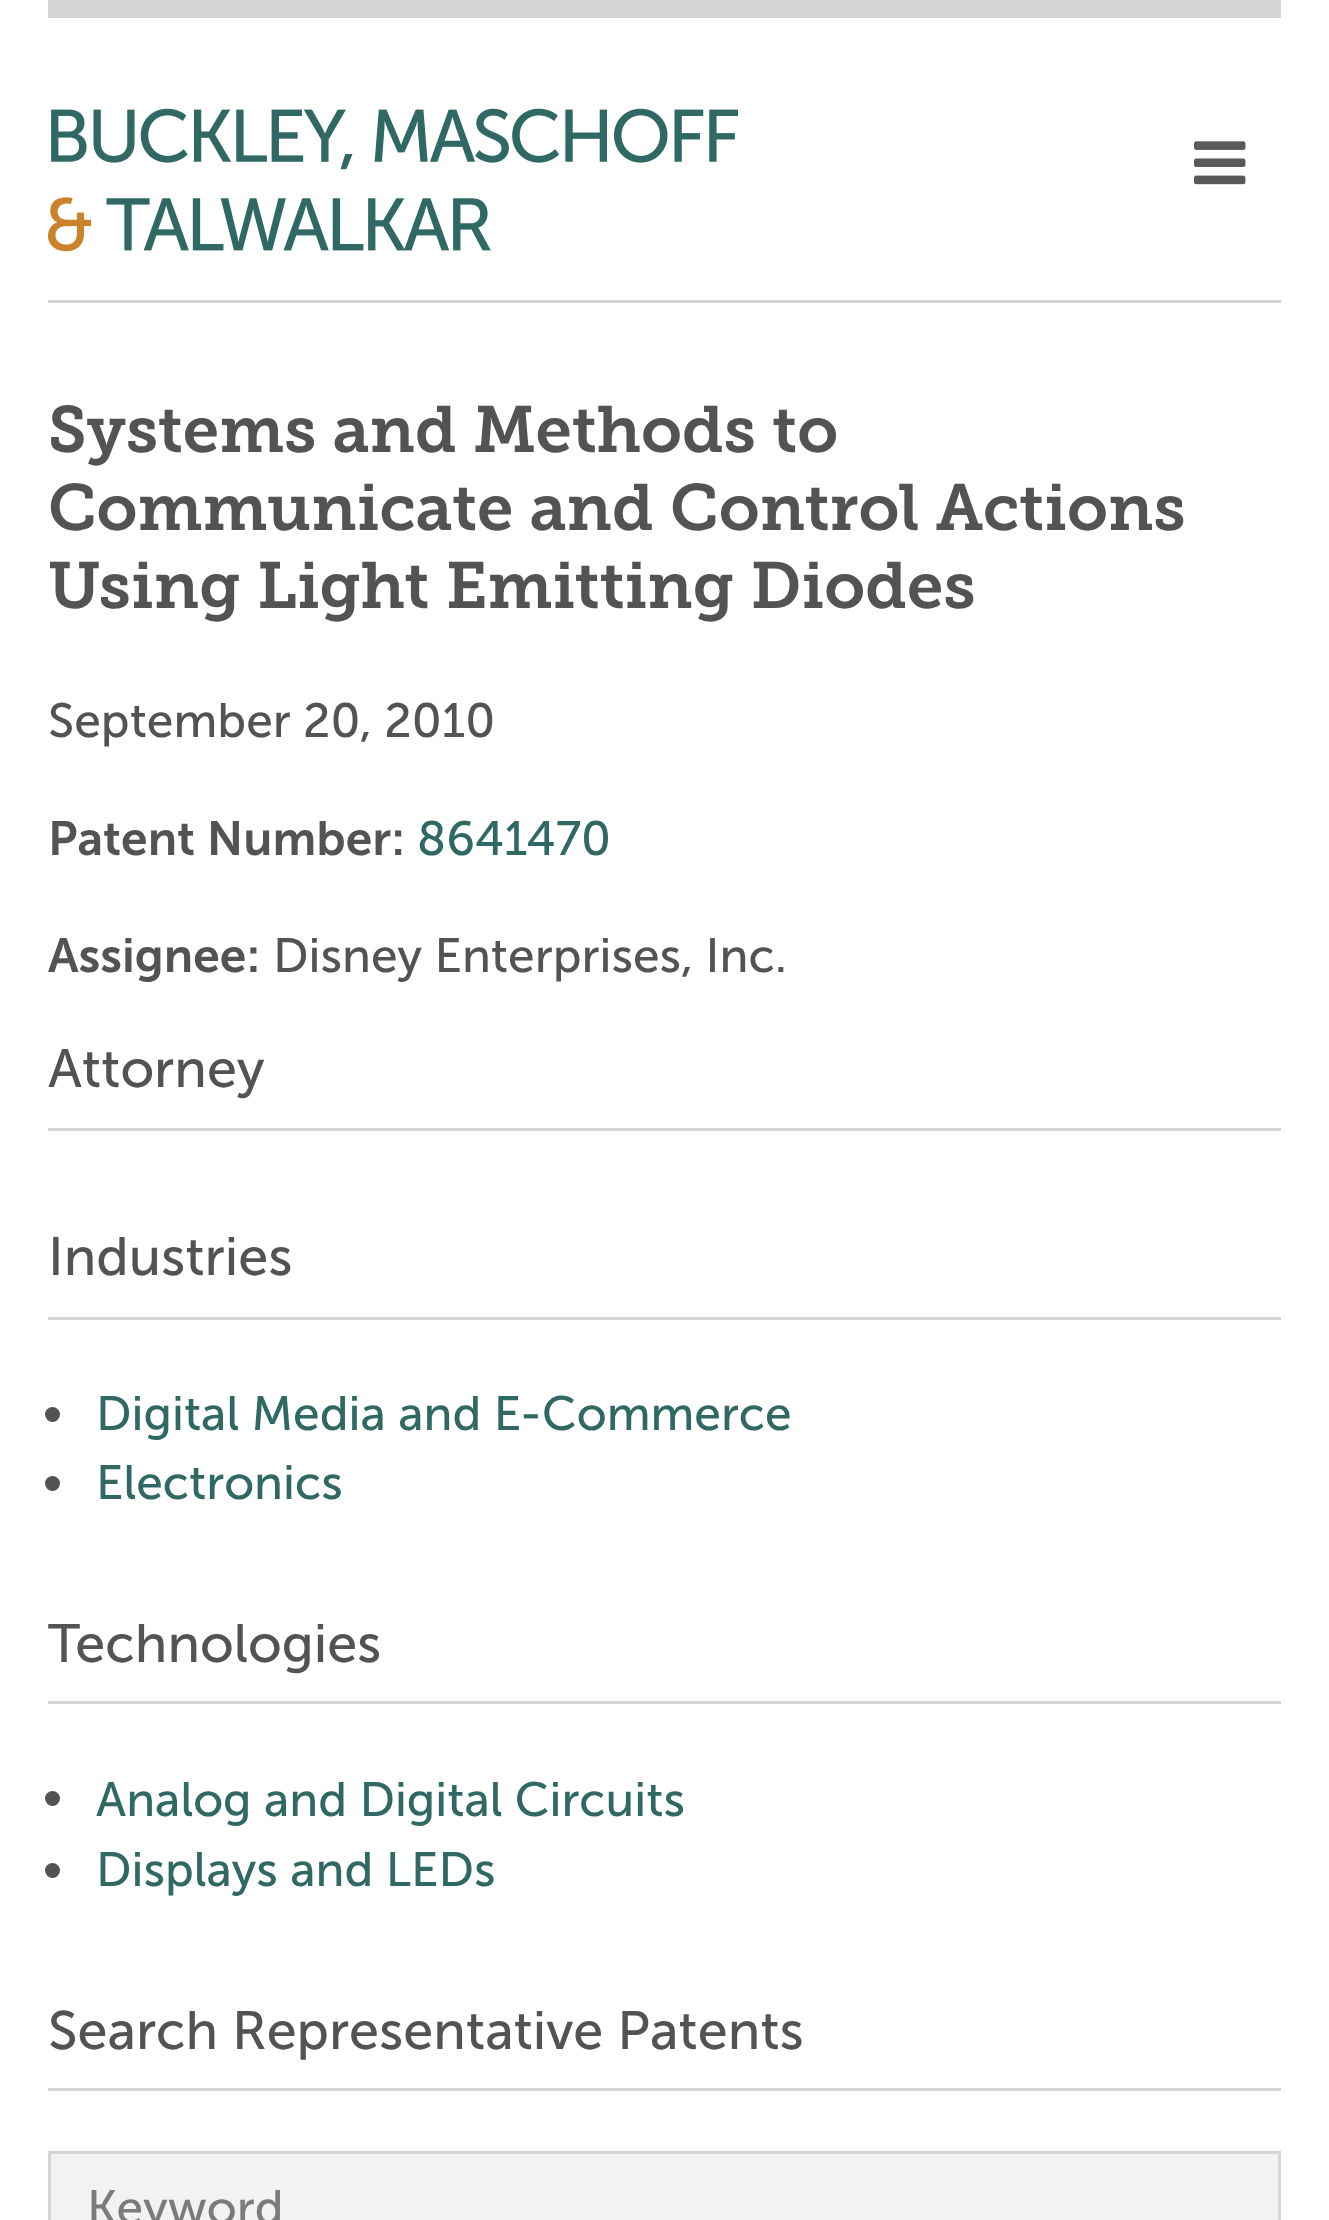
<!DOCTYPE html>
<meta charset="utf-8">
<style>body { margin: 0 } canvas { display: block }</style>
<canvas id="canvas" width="1329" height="2220"></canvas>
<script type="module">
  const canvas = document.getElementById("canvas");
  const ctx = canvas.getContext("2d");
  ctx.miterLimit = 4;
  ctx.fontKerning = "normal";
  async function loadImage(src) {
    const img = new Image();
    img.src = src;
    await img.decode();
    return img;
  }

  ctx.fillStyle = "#ffffff";
  ctx.fillRect(0, 0, 1329, 2220);
  ctx.fillStyle = "#d4d4d4";
  ctx.fillRect(48, 0, 1233, 18);
  ctx.fillRect(48, 300, 1233, 3);
  ctx.drawImage(await loadImage("img1.png"), 48, 108, 690, 144);
  ctx.drawImage(await loadImage("img2.png"), 1194, 141, 52, 44);
  ctx.font = "600 65.2px 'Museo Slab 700'";
  ctx.fillStyle = "#535353";
  ctx.fillText("Systems and Methods to", 48, 452);
  ctx.fillText("Communicate and Control Actions", 48, 530);
  ctx.fillText("Using Light Emitting Diodes", 48, 608);
  ctx.font = "48px 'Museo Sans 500'";
  ctx.fillText("September 20, 2010", 48, 737);
  ctx.font = "600 48px 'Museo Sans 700'";
  ctx.fillText("Patent Number:", 48, 855);
  ctx.font = "48px 'Museo Sans 500'";
  ctx.fillStyle = "#306864";
  ctx.fillText("8641470", 417, 855);
  ctx.font = "600 48px 'Museo Sans 700'";
  ctx.fillStyle = "#535353";
  ctx.fillText("Assignee:", 48, 972);
  ctx.font = "48px 'Museo Sans 500'";
  ctx.fillText("Disney Enterprises, Inc.", 273, 972);
  ctx.fillStyle = "#d4d4d4";
  ctx.fillRect(48, 1128, 1233, 3);
  ctx.font = "54px 'Museo Sans 500'";
  ctx.fillStyle = "#535353";
  ctx.fillText("Attorney", 48, 1087);
  ctx.fillStyle = "#d4d4d4";
  ctx.fillRect(48, 1317, 1233, 3);
  ctx.fillStyle = "#535353";
  ctx.fillText("Industries", 48, 1275);
  ctx.beginPath();
  ctx.arc(52.5, 1414.5, 7.5, 0, Math.PI * 2);
  ctx.fill();
  ctx.font = "48px 'Museo Sans 500'";
  ctx.fillStyle = "#306864";
  ctx.fillText("Digital Media and E-Commerce", 96, 1430);
  ctx.fillStyle = "#535353";
  ctx.beginPath();
  ctx.arc(52.5, 1483.5, 7.5, 0, Math.PI * 2);
  ctx.fill();
  ctx.fillStyle = "#306864";
  ctx.fillText("Electronics", 96, 1499);
  ctx.fillStyle = "#d4d4d4";
  ctx.fillRect(48, 1701, 1233, 3);
  ctx.font = "54px 'Museo Sans 500'";
  ctx.fillStyle = "#535353";
  ctx.fillText("Technologies", 48, 1662);
  ctx.beginPath();
  ctx.arc(52.5, 1798.5, 7.5, 0, Math.PI * 2);
  ctx.fill();
  ctx.font = "48px 'Museo Sans 500'";
  ctx.fillStyle = "#306864";
  ctx.fillText("Analog and Digital Circuits", 96, 1816);
  ctx.fillStyle = "#535353";
  ctx.beginPath();
  ctx.arc(52.5, 1870.5, 7.5, 0, Math.PI * 2);
  ctx.fill();
  ctx.fillStyle = "#306864";
  ctx.fillText("Displays and LEDs", 96, 1886);
  ctx.fillStyle = "#d4d4d4";
  ctx.fillRect(48, 2088, 1233, 3);
  ctx.font = "54px 'Museo Sans 500'";
  ctx.fillStyle = "#535353";
  ctx.fillText("Search Representative Patents", 48, 2049);
  ctx.fillStyle = "#f3f2f1";
  ctx.beginPath();
  ctx.rect(49.5, 2152.5, 1230, 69);
  ctx.fill();
  ctx.strokeStyle = "#d4d4d4";
  ctx.lineWidth = 3;
  ctx.stroke();
  ctx.font = "48px 'Museo Sans 500'";
  ctx.fillStyle = "#7b7b7b";
  ctx.fillText("Keyword", 87, 2224);
</script>
